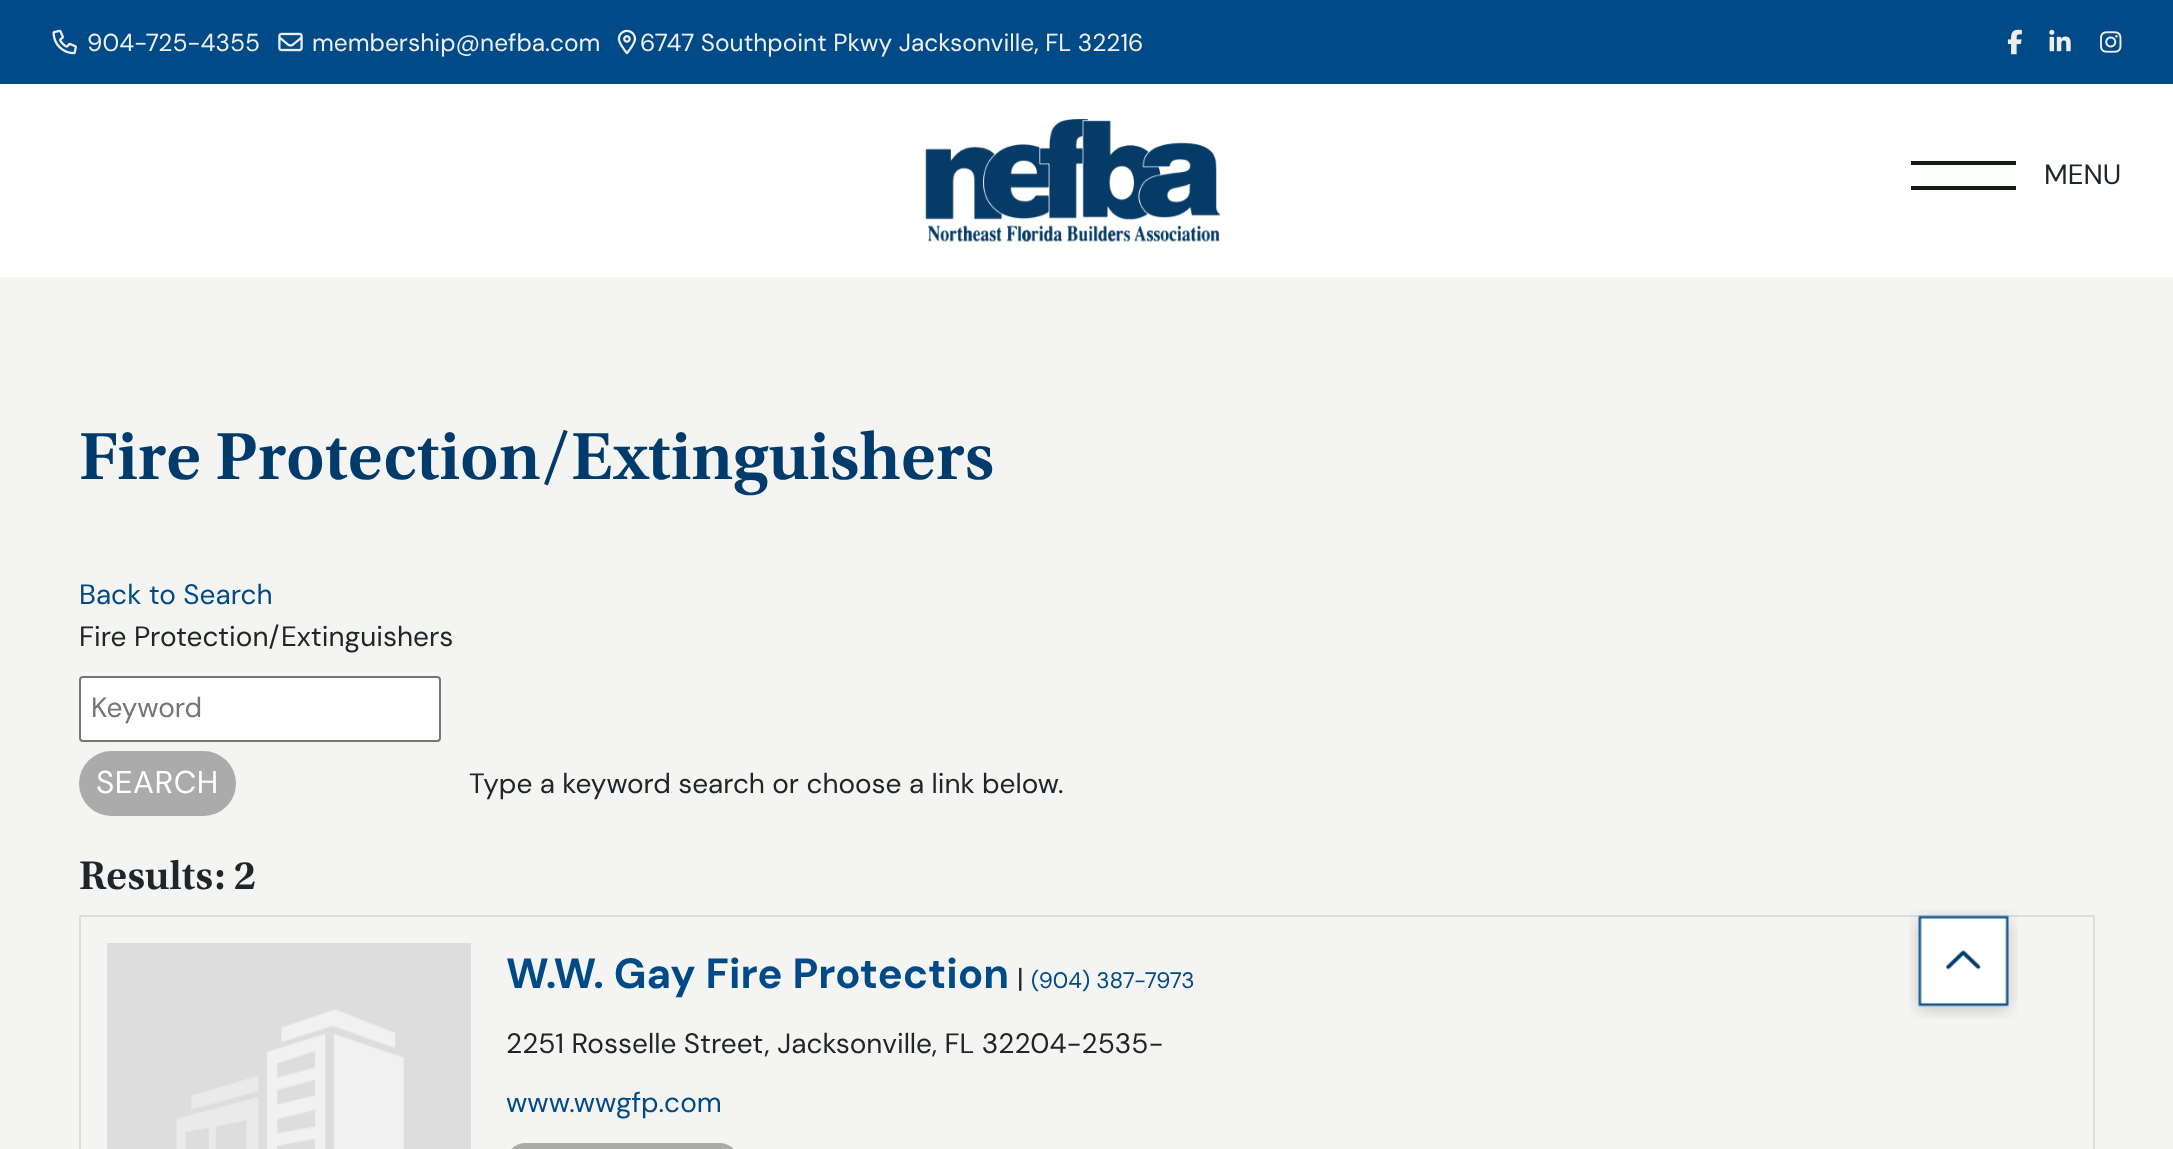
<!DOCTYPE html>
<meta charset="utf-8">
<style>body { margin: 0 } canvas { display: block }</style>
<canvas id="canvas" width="2173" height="1149"></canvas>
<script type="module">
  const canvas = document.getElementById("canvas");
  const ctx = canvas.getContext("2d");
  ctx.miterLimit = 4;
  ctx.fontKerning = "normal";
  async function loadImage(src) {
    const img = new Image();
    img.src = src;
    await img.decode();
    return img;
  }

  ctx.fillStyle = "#f4f4f3";
  ctx.fillRect(0, 0, 2173, 1149);
  ctx.fillStyle = "#004a87";
  ctx.fillRect(0, 0, 2173, 84);
  ctx.drawImage(await loadImage("img1.png"), 52, 29, 25, 26);
  ctx.font = "24.5px DM Sans";
  ctx.fillStyle = "#eeeeee";
  ctx.fillText("904-725-4355", 87, 51);
  ctx.drawImage(await loadImage("img2.png"), 278, 32, 25, 20);
  ctx.fillText("membership@nefba.com", 312, 51);
  ctx.drawImage(await loadImage("img3.png"), 617, 29, 20, 26);
  ctx.fillText("6747 Southpoint Pkwy Jacksonville, FL 32216", 640, 51);
  ctx.drawImage(await loadImage("img4.png"), 2007, 29, 15, 26);
  ctx.drawImage(await loadImage("img5.png"), 2049, 29, 22, 23);
  ctx.drawImage(await loadImage("img6.png"), 2100, 31, 22, 22);
  ctx.fillStyle = "#ffffff";
  ctx.fillRect(0, 84, 2173, 193);
  ctx.drawImage(await loadImage("img7.png"), 925, 119, 295, 123);
  ctx.fillStyle = "#161a14";
  ctx.fillRect(1911, 161, 105, 4);
  ctx.fillRect(1911, 186, 105, 4);
  ctx.font = "28px 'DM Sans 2'";
  ctx.fillStyle = "#212529";
  ctx.fillText("MENU", 2044, 184);
  ctx.font = "600 70px Utopia";
  ctx.fillStyle = "#003b6b";
  ctx.fillText("Fire Protection/Extinguishers", 79, 479);
  ctx.font = "28px DM Sans";
  ctx.fillStyle = "#004a87";
  ctx.fillText("Back to Search", 79, 604);
  ctx.fillStyle = "#212529";
  ctx.fillText("Fire Protection/Extinguishers", 79, 646);
  ctx.fillStyle = "#ffffff";
  ctx.beginPath();
  ctx.roundRect(80, 677, 360, 64, 3);
  ctx.fill();
  ctx.strokeStyle = "#767676";
  ctx.lineWidth = 2;
  ctx.stroke();
  ctx.fillStyle = "#757575";
  ctx.fillText("Keyword", 91, 717);
  ctx.fillStyle = "#ababab";
  ctx.beginPath();
  ctx.roundRect(79, 751, 157, 65, 32.5);
  ctx.fill();
  ctx.letterSpacing = "0.5px";
  ctx.font = "31.5px DM Sans";
  ctx.fillStyle = "#ffffff";
  ctx.fillText("SEARCH", 96, 793);
  ctx.letterSpacing = "0px";
  ctx.font = "28px 'DM Sans 2'";
  ctx.fillStyle = "#212529";
  ctx.fillText("Type a keyword search or choose a link below.", 469, 793);
  ctx.font = "600 42px Utopia";
  ctx.fillText("Results: 2", 79, 889);
  ctx.strokeStyle = "#dddddd";
  ctx.strokeRect(80, 916, 2014, 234);
  ctx.fillStyle = "#dddddd";
  ctx.fillRect(107, 943, 364, 206);
  ctx.drawImage(await loadImage("img8.png"), 176, 1009, 228, 140);
  ctx.font = "bold 42px DM Sans";
  ctx.fillStyle = "#004a87";
  ctx.fillText("W.W. Gay Fire Protection", 506, 988);
  ctx.font = "28px DM Sans";
  ctx.fillStyle = "#212529";
  ctx.fillText("|", 1017, 988);
  ctx.font = "22.5px DM Sans";
  ctx.fillStyle = "#004a87";
  ctx.fillText("(904) 387-7973", 1031, 988);
  ctx.font = "28px DM Sans";
  ctx.fillStyle = "#212529";
  ctx.fillText("2251 Rosselle Street, Jacksonville, FL 32204-2535-", 506, 1053);
  ctx.fillStyle = "#004a87";
  ctx.fillText("www.wwgfp.com", 506, 1112);
  ctx.fillStyle = "#ababab";
  ctx.beginPath();
  ctx.roundRect(506, 1143, 233, 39, 32.5);
  ctx.fill();
  ctx.drawImage(await loadImage("img9.png"), 1909, 909, 109, 110);
</script>
